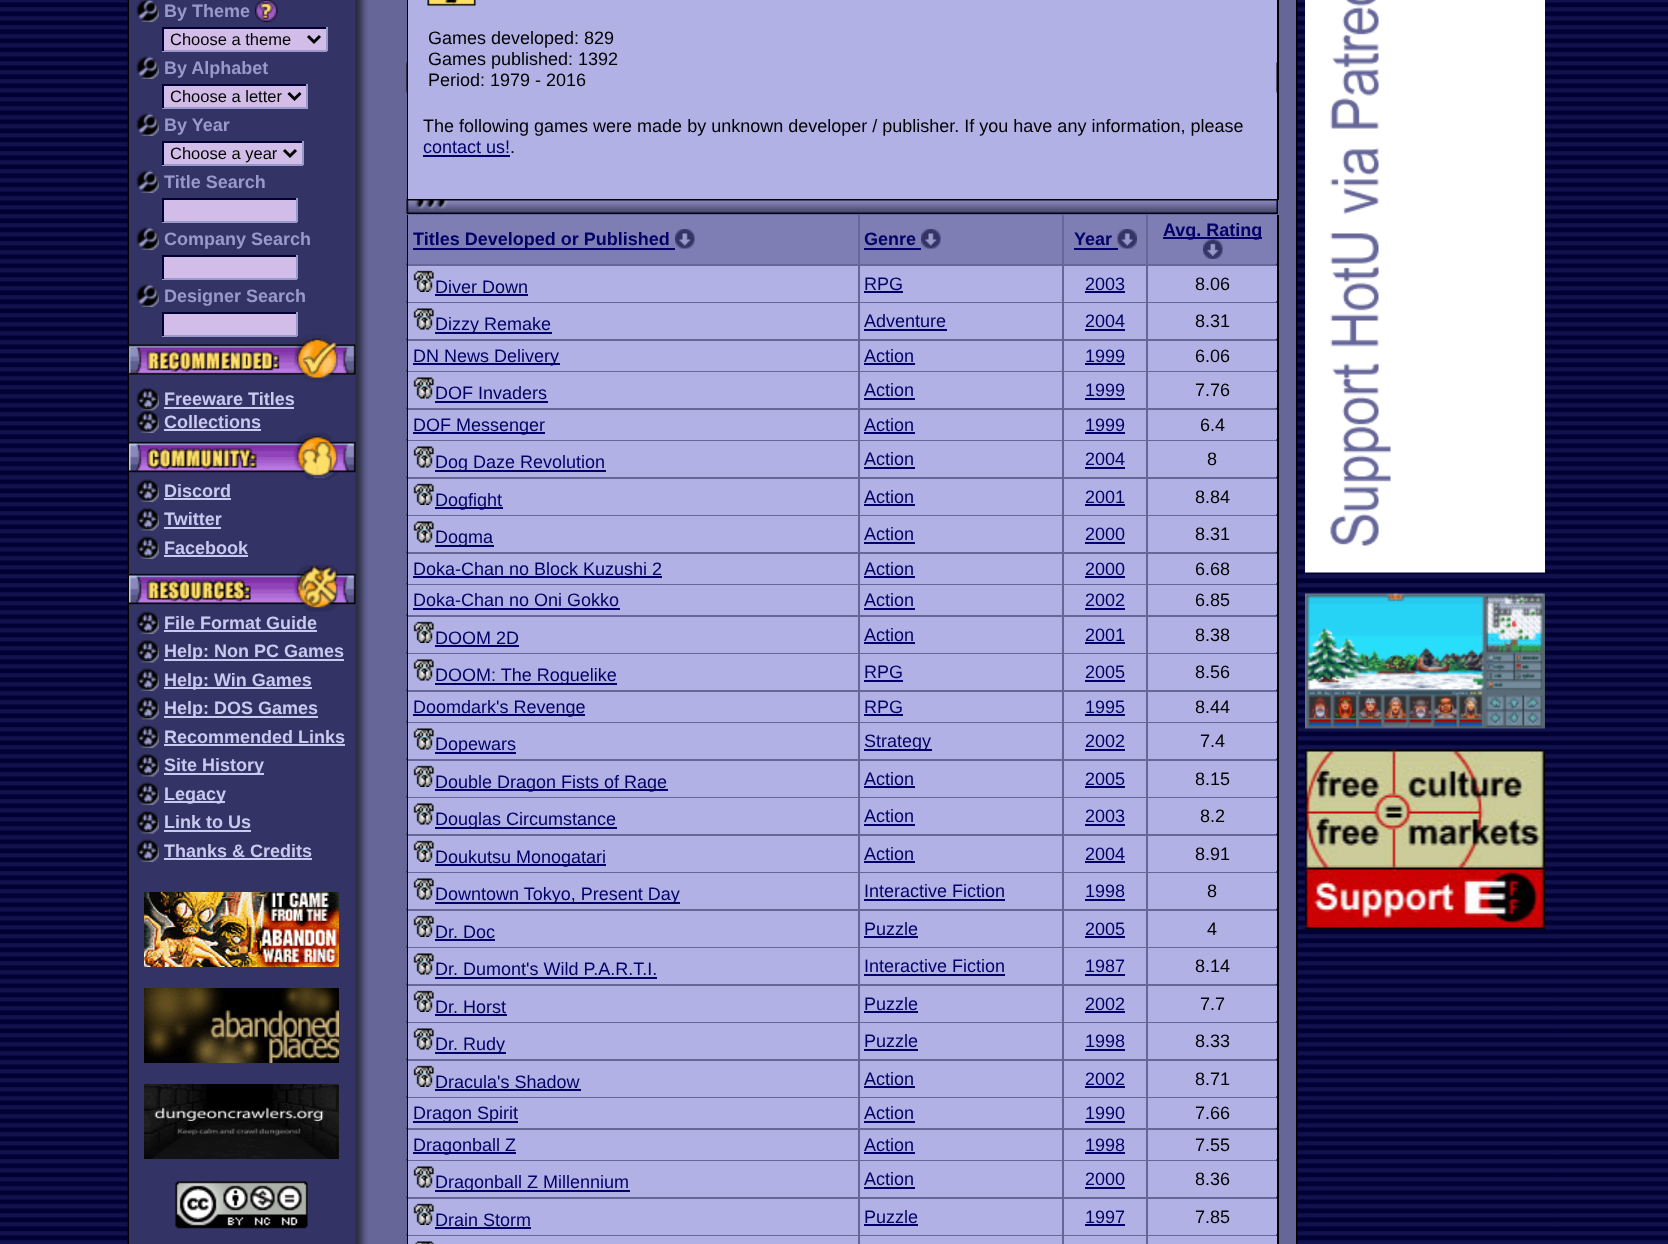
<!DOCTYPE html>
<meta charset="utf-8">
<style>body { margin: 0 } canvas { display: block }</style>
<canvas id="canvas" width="1668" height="1244"></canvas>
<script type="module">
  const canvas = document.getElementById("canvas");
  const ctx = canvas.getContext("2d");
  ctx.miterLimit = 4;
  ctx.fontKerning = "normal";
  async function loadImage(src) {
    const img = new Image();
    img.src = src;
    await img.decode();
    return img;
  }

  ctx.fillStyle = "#ffffff";
  ctx.fillRect(0, 0, 1668, 1244);
  ctx.drawImage(await loadImage("img1.png"), 1552, 0, 1, 1244);
  ctx.fillStyle = "#000033";
  ctx.fillRect(127, 0, 1, 1244);
  ctx.drawImage(await loadImage("img2.png"), 0, 0, 128, 1244);
  ctx.fillStyle = "#000000";
  ctx.fillRect(128, 0, 1, 1244);
  ctx.fillStyle = "rgba(0, 0, 0, 0.5)";
  ctx.fillRect(127, 652, 1, 300);
  ctx.fillStyle = "#000000";
  ctx.fillRect(1296, 0, 2, 1244);
  ctx.drawImage(await loadImage("img3.png"), 1297, 0, 256, 1244);
  ctx.fillStyle = "rgba(0, 0, 0, 0.5)";
  ctx.fillRect(1297, 652, 1, 300);
  ctx.drawImage(await loadImage("img4.png"), 1305, 0, 240, 573);
  ctx.drawImage(await loadImage("img5.png"), 1305, 593, 240, 136);
  ctx.drawImage(await loadImage("img6.png"), 1305, 749, 240, 181);
  ctx.drawImage(await loadImage("img7.png"), 1552, 0, 116, 1244);
  ctx.fillStyle = "#333366";
  ctx.fillRect(129, 0, 227, 1244);
  ctx.drawImage(await loadImage("img8.png"), 136, 0, 23, 22);
  ctx.font = "bold 18px Liberation Sans";
  ctx.fillStyle = "#9999cc";
  ctx.fillText("By Theme", 164, 17);
  ctx.drawImage(await loadImage("img9.png"), 255, 0, 23, 22);
  ctx.fillStyle = "#d2bde8";
  ctx.fillRect(164, 29, 162, 21);
  ctx.fillStyle = "#000033";
  ctx.fillRect(162, 27, 165, 2);
  ctx.fillStyle = "#9999cc";
  ctx.fillRect(326, 27, 2, 24);
  ctx.fillRect(162, 50, 165, 2);
  ctx.fillStyle = "#000033";
  ctx.fillRect(162, 27, 2, 24);
  ctx.beginPath();
  ctx.moveTo(308, 36);
  ctx.lineTo(314, 42);
  ctx.lineTo(320, 36);
  ctx.strokeStyle = "#000000";
  ctx.lineWidth = 3;
  ctx.stroke();
  ctx.font = "16.5px Liberation Sans";
  ctx.fillStyle = "#000000";
  ctx.fillText("Choose a theme", 170, 45);
  ctx.drawImage(await loadImage("img10.png"), 136, 56, 23, 23);
  ctx.font = "bold 18px Liberation Sans";
  ctx.fillStyle = "#9999cc";
  ctx.fillText("By Alphabet", 164, 74);
  ctx.fillStyle = "#d2bde8";
  ctx.fillRect(164, 86, 142, 21);
  ctx.fillStyle = "#000033";
  ctx.fillRect(162, 84, 146, 2);
  ctx.fillStyle = "#9999cc";
  ctx.fillRect(306, 84, 2, 24);
  ctx.fillRect(162, 107, 146, 2);
  ctx.fillStyle = "#000033";
  ctx.fillRect(162, 84, 2, 24);
  ctx.beginPath();
  ctx.moveTo(288.5, 93);
  ctx.lineTo(294.5, 99);
  ctx.lineTo(300.5, 93);
  ctx.stroke();
  ctx.font = "16.5px Liberation Sans";
  ctx.fillStyle = "#000000";
  ctx.fillText("Choose a letter", 170, 102);
  ctx.drawImage(await loadImage("img10.png"), 136, 113, 23, 23);
  ctx.font = "bold 18px Liberation Sans";
  ctx.fillStyle = "#9999cc";
  ctx.fillText("By Year", 164, 131);
  ctx.fillStyle = "#d2bde8";
  ctx.fillRect(164, 143, 138, 21);
  ctx.fillStyle = "#000033";
  ctx.fillRect(162, 141, 141, 2);
  ctx.fillStyle = "#9999cc";
  ctx.fillRect(302, 141, 2, 24);
  ctx.fillRect(162, 164, 141, 2);
  ctx.fillStyle = "#000033";
  ctx.fillRect(162, 141, 2, 24);
  ctx.beginPath();
  ctx.moveTo(284, 150);
  ctx.lineTo(290, 156);
  ctx.lineTo(296, 150);
  ctx.stroke();
  ctx.font = "16.5px Liberation Sans";
  ctx.fillStyle = "#000000";
  ctx.fillText("Choose a year", 170, 159);
  ctx.drawImage(await loadImage("img10.png"), 136, 170, 23, 23);
  ctx.font = "bold 18px Liberation Sans";
  ctx.fillStyle = "#9999cc";
  ctx.fillText("Title Search", 164, 188);
  ctx.fillStyle = "#d2bde8";
  ctx.fillRect(164, 200, 132, 21);
  ctx.fillStyle = "#000033";
  ctx.fillRect(162, 198, 135, 2);
  ctx.fillStyle = "#9999cc";
  ctx.fillRect(296, 198, 2, 24);
  ctx.fillRect(162, 221, 135, 2);
  ctx.fillStyle = "#000033";
  ctx.fillRect(162, 198, 2, 24);
  ctx.drawImage(await loadImage("img10.png"), 136, 227, 23, 23);
  ctx.fillStyle = "#9999cc";
  ctx.fillText("Company Search", 164, 245);
  ctx.fillStyle = "#d2bde8";
  ctx.fillRect(164, 257, 132, 21);
  ctx.fillStyle = "#000033";
  ctx.fillRect(162, 255, 135, 2);
  ctx.fillStyle = "#9999cc";
  ctx.fillRect(296, 255, 2, 24);
  ctx.fillRect(162, 278, 135, 2);
  ctx.fillStyle = "#000033";
  ctx.fillRect(162, 255, 2, 24);
  ctx.drawImage(await loadImage("img10.png"), 136, 284, 23, 23);
  ctx.fillStyle = "#9999cc";
  ctx.fillText("Designer Search", 164, 302);
  ctx.fillStyle = "#d2bde8";
  ctx.fillRect(164, 314, 132, 21);
  ctx.fillStyle = "#000033";
  ctx.fillRect(162, 312, 135, 2);
  ctx.fillStyle = "#9999cc";
  ctx.fillRect(296, 312, 2, 24);
  ctx.fillRect(162, 335, 135, 2);
  ctx.fillStyle = "#000033";
  ctx.fillRect(162, 312, 2, 24);
  ctx.drawImage(await loadImage("img21.png"), 355, 0, 13, 1244);
  ctx.drawImage(await loadImage("img11.png"), 129, 335, 227, 47);
  ctx.drawImage(await loadImage("img12.png"), 136, 388, 23, 23);
  ctx.fillStyle = "#c9caf0";
  ctx.fillText("Freeware Titles", 164, 405);
  ctx.fillRect(164, 407, 130, 2);
  ctx.drawImage(await loadImage("img13.png"), 136, 410, 23, 23);
  ctx.fillText("Collections", 164, 428);
  ctx.fillRect(164, 429, 97, 2);
  ctx.drawImage(await loadImage("img14.png"), 129, 433, 227, 47);
  ctx.drawImage(await loadImage("img15.png"), 136, 479, 23, 23);
  ctx.fillText("Discord", 164, 497);
  ctx.fillRect(164, 498, 67, 2);
  ctx.drawImage(await loadImage("img12.png"), 136, 508, 23, 23);
  ctx.fillText("Twitter", 164, 525);
  ctx.fillRect(164, 527, 57, 2);
  ctx.drawImage(await loadImage("img15.png"), 136, 536, 23, 23);
  ctx.fillText("Facebook", 164, 554);
  ctx.fillRect(164, 555, 84, 2);
  ctx.drawImage(await loadImage("img16.png"), 129, 565, 227, 47);
  ctx.drawImage(await loadImage("img15.png"), 136, 611, 23, 23);
  ctx.fillText("File Format Guide", 164, 629);
  ctx.fillRect(164, 630, 153, 2);
  ctx.drawImage(await loadImage("img12.png"), 136, 640, 23, 23);
  ctx.fillRect(164, 659, 180, 2);
  ctx.fillText("Help: Non PC Games", 164, 657);
  ctx.drawImage(await loadImage("img15.png"), 136, 668, 23, 23);
  ctx.fillRect(164, 687, 148, 2);
  ctx.fillText("Help: Win Games", 164, 686);
  ctx.drawImage(await loadImage("img12.png"), 136, 697, 23, 23);
  ctx.fillRect(164, 716, 154, 2);
  ctx.fillText("Help: DOS Games", 164, 714);
  ctx.drawImage(await loadImage("img15.png"), 136, 725, 23, 23);
  ctx.fillText("Recommended Links", 164, 743);
  ctx.fillRect(164, 744, 181, 2);
  ctx.drawImage(await loadImage("img12.png"), 136, 754, 23, 23);
  ctx.fillRect(164, 773, 100, 2);
  ctx.fillText("Site History", 164, 771);
  ctx.drawImage(await loadImage("img15.png"), 136, 782, 23, 23);
  ctx.fillRect(164, 801, 61, 2);
  ctx.fillText("Legacy", 164, 800);
  ctx.drawImage(await loadImage("img12.png"), 136, 811, 23, 23);
  ctx.fillText("Link to Us", 164, 828);
  ctx.fillRect(164, 830, 87, 2);
  ctx.drawImage(await loadImage("img15.png"), 136, 839, 23, 23);
  ctx.fillText("Thanks & Credits", 164, 857);
  ctx.fillRect(164, 858, 148, 2);
  ctx.drawImage(await loadImage("img17.png"), 144, 892, 195, 75);
  ctx.drawImage(await loadImage("img18.png"), 144, 988, 195, 75);
  ctx.drawImage(await loadImage("img19.png"), 144, 1084, 195, 75);
  ctx.drawImage(await loadImage("img20.png"), 175, 1181, 133, 48);
  ctx.fillStyle = "#666699";
  ctx.fillRect(368, 0, 928, 1244);
  ctx.fillStyle = "rgba(44, 44, 66, 0.5)";
  ctx.fillRect(355, 0, 1, 355);
  ctx.fillStyle = "#000000";
  ctx.fillRect(407, 0, 1, 200);
  ctx.drawImage(await loadImage("img22.png"), 406, 62, 1, 31);
  ctx.fillStyle = "#b1b1e6";
  ctx.fillRect(408, 0, 869, 199);
  ctx.fillStyle = "#000000";
  ctx.fillRect(1277, 0, 2, 200);
  ctx.drawImage(await loadImage("img23.png"), 1276, 62, 1, 31);
  ctx.drawImage(await loadImage("img24.png"), 427, 0, 49, 6);
  ctx.font = "18px Liberation Sans";
  ctx.fillText("Games developed: 829", 428, 44);
  ctx.fillText("Games published: 1392", 428, 65);
  ctx.fillText("Period: 1979 - 2016", 428, 86);
  ctx.fillText("The following games were made by unknown developer / publisher. If you have any information, please", 423, 132);
  ctx.fillStyle = "#000066";
  ctx.fillText("contact us!", 423, 153);
  ctx.fillRect(423, 155, 87, 2);
  ctx.fillStyle = "#000000";
  ctx.fillText(".", 510, 153);
  ctx.drawImage(await loadImage("img25.png"), 406, 199, 872, 15);
  ctx.fillRect(407, 215, 1, 49);
  ctx.fillStyle = "#7e7eb4";
  ctx.fillRect(408, 215, 450, 49);
  ctx.fillStyle = "#000066";
  ctx.fillRect(413, 248, 262, 2);
  ctx.font = "bold 18px Liberation Sans";
  ctx.fillText("Titles Developed or Published", 413, 245);
  ctx.drawImage(await loadImage("img26.png"), 675, 229, 20, 20);
  ctx.fillStyle = "#7e7eb4";
  ctx.fillRect(860, 215, 202, 49);
  ctx.fillStyle = "#000066";
  ctx.fillText("Genre", 864, 245);
  ctx.fillRect(864, 248, 57, 2);
  ctx.drawImage(await loadImage("img26.png"), 921, 229, 20, 20);
  ctx.fillStyle = "#7e7eb4";
  ctx.fillRect(1064, 215, 82, 49);
  ctx.fillStyle = "#000066";
  ctx.fillText("Year", 1074, 245);
  ctx.fillRect(1074, 248, 44, 2);
  ctx.drawImage(await loadImage("img27.png"), 1117, 229, 20, 20);
  ctx.fillStyle = "#7e7eb4";
  ctx.fillRect(1148, 215, 129, 49);
  ctx.fillStyle = "#000066";
  ctx.fillRect(1163, 237, 99, 2);
  ctx.fillText("Avg. Rating", 1163, 236);
  ctx.drawImage(await loadImage("img28.png"), 1203, 239, 20, 20);
  ctx.fillStyle = "#000000";
  ctx.fillRect(1277, 215, 2, 1029);
  ctx.fillRect(407, 264, 2, 2);
  ctx.drawImage(await loadImage("img29.png"), 406, 263, 1, 2);
  ctx.drawImage(await loadImage("img30.png"), 1276, 263, 1, 2);
  ctx.fillStyle = "#666699";
  ctx.fillRect(408, 264, 1, 2);
  ctx.fillStyle = "#000000";
  ctx.fillRect(407, 266, 1, 36);
  ctx.fillStyle = "#b1b1e6";
  ctx.fillRect(408, 266, 450, 36);
  ctx.drawImage(await loadImage("img31.png"), 413, 270, 21, 22);
  ctx.font = "18px Liberation Sans";
  ctx.fillStyle = "#000066";
  ctx.fillText("Diver Down", 435, 293);
  ctx.fillRect(435, 294, 93, 2);
  ctx.fillStyle = "#b1b1e6";
  ctx.fillRect(860, 266, 202, 36);
  ctx.fillStyle = "#000066";
  ctx.fillText("RPG", 864, 290);
  ctx.fillRect(864, 291, 39, 2);
  ctx.fillStyle = "#b1b1e6";
  ctx.fillRect(1064, 266, 82, 36);
  ctx.fillStyle = "#000066";
  ctx.fillText("2003", 1085, 290);
  ctx.fillRect(1085, 291, 40, 2);
  ctx.fillStyle = "#b1b1e6";
  ctx.fillRect(1148, 266, 129, 36);
  ctx.fillStyle = "#000000";
  ctx.fillText("8.06", 1195, 290);
  ctx.fillRect(407, 302, 2, 1);
  ctx.drawImage(await loadImage("img32.png"), 406, 301, 1, 2);
  ctx.drawImage(await loadImage("img33.png"), 1276, 301, 1, 2);
  ctx.fillStyle = "#666699";
  ctx.fillRect(408, 302, 1, 1);
  ctx.fillStyle = "#000000";
  ctx.fillRect(407, 303, 1, 36);
  ctx.fillStyle = "#b1b1e6";
  ctx.fillRect(408, 303, 450, 36);
  ctx.drawImage(await loadImage("img34.png"), 413, 308, 21, 22);
  ctx.fillStyle = "#000066";
  ctx.fillRect(435, 332, 117, 2);
  ctx.fillText("Dizzy Remake", 435, 330);
  ctx.fillStyle = "#b1b1e6";
  ctx.fillRect(860, 303, 202, 36);
  ctx.fillStyle = "#000066";
  ctx.fillText("Adventure", 864, 327);
  ctx.fillRect(864, 329, 83, 2);
  ctx.fillStyle = "#b1b1e6";
  ctx.fillRect(1064, 303, 82, 36);
  ctx.fillStyle = "#000066";
  ctx.fillText("2004", 1085, 327);
  ctx.fillRect(1085, 329, 40, 2);
  ctx.fillStyle = "#b1b1e6";
  ctx.fillRect(1148, 303, 129, 36);
  ctx.fillStyle = "#000000";
  ctx.fillText("8.31", 1195, 327);
  ctx.fillRect(407, 339, 2, 2);
  ctx.drawImage(await loadImage("img29.png"), 406, 338, 1, 2);
  ctx.drawImage(await loadImage("img35.png"), 1276, 338, 1, 2);
  ctx.fillStyle = "#666699";
  ctx.fillRect(408, 339, 1, 2);
  ctx.fillStyle = "#000000";
  ctx.fillRect(407, 341, 1, 30);
  ctx.fillStyle = "#b1b1e6";
  ctx.fillRect(408, 341, 450, 30);
  ctx.fillStyle = "#000066";
  ctx.fillRect(413, 363, 147, 2);
  ctx.fillText("DN News Delivery", 413, 362);
  ctx.fillStyle = "#b1b1e6";
  ctx.fillRect(860, 341, 202, 30);
  ctx.fillStyle = "#000066";
  ctx.fillText("Action", 864, 362);
  ctx.fillRect(864, 363, 51, 2);
  ctx.fillStyle = "#b1b1e6";
  ctx.fillRect(1064, 341, 82, 30);
  ctx.fillStyle = "#000066";
  ctx.fillText("1999", 1085, 362);
  ctx.fillRect(1085, 363, 40, 2);
  ctx.fillStyle = "#b1b1e6";
  ctx.fillRect(1148, 341, 129, 30);
  ctx.fillStyle = "#000000";
  ctx.fillText("6.06", 1195, 362);
  ctx.fillRect(407, 371, 2, 1);
  ctx.drawImage(await loadImage("img32.png"), 406, 370, 1, 2);
  ctx.drawImage(await loadImage("img33.png"), 1276, 370, 1, 2);
  ctx.fillStyle = "#666699";
  ctx.fillRect(408, 371, 1, 1);
  ctx.fillStyle = "#000000";
  ctx.fillRect(407, 372, 1, 36);
  ctx.fillStyle = "#b1b1e6";
  ctx.fillRect(408, 372, 450, 36);
  ctx.drawImage(await loadImage("img34.png"), 413, 377, 21, 22);
  ctx.fillStyle = "#000066";
  ctx.fillText("DOF Invaders", 435, 399);
  ctx.fillRect(435, 401, 113, 2);
  ctx.fillStyle = "#b1b1e6";
  ctx.fillRect(860, 372, 202, 36);
  ctx.fillStyle = "#000066";
  ctx.fillText("Action", 864, 396);
  ctx.fillRect(864, 398, 51, 2);
  ctx.fillStyle = "#b1b1e6";
  ctx.fillRect(1064, 372, 82, 36);
  ctx.fillStyle = "#000066";
  ctx.fillText("1999", 1085, 396);
  ctx.fillRect(1085, 398, 40, 2);
  ctx.fillStyle = "#b1b1e6";
  ctx.fillRect(1148, 372, 129, 36);
  ctx.fillStyle = "#000000";
  ctx.fillText("7.76", 1195, 396);
  ctx.fillRect(407, 408, 2, 2);
  ctx.drawImage(await loadImage("img29.png"), 406, 407, 1, 2);
  ctx.drawImage(await loadImage("img35.png"), 1276, 407, 1, 2);
  ctx.fillStyle = "#666699";
  ctx.fillRect(408, 408, 1, 2);
  ctx.fillStyle = "#000000";
  ctx.fillRect(407, 410, 1, 30);
  ctx.fillStyle = "#b1b1e6";
  ctx.fillRect(408, 410, 450, 30);
  ctx.fillStyle = "#000066";
  ctx.fillRect(413, 432, 132, 2);
  ctx.fillText("DOF Messenger", 413, 431);
  ctx.fillStyle = "#b1b1e6";
  ctx.fillRect(860, 410, 202, 30);
  ctx.fillStyle = "#000066";
  ctx.fillText("Action", 864, 431);
  ctx.fillRect(864, 432, 51, 2);
  ctx.fillStyle = "#b1b1e6";
  ctx.fillRect(1064, 410, 82, 30);
  ctx.fillStyle = "#000066";
  ctx.fillText("1999", 1085, 431);
  ctx.fillRect(1085, 432, 40, 2);
  ctx.fillStyle = "#b1b1e6";
  ctx.fillRect(1148, 410, 129, 30);
  ctx.fillStyle = "#000000";
  ctx.fillText("6.4", 1200, 431);
  ctx.fillRect(407, 440, 2, 1);
  ctx.drawImage(await loadImage("img32.png"), 406, 439, 1, 2);
  ctx.drawImage(await loadImage("img33.png"), 1276, 439, 1, 2);
  ctx.fillStyle = "#666699";
  ctx.fillRect(408, 440, 1, 1);
  ctx.fillStyle = "#000000";
  ctx.fillRect(407, 441, 1, 36);
  ctx.fillStyle = "#b1b1e6";
  ctx.fillRect(408, 441, 450, 36);
  ctx.drawImage(await loadImage("img34.png"), 413, 446, 21, 22);
  ctx.fillStyle = "#000066";
  ctx.fillRect(435, 470, 171, 2);
  ctx.fillText("Dog Daze Revolution", 435, 468);
  ctx.fillStyle = "#b1b1e6";
  ctx.fillRect(860, 441, 202, 36);
  ctx.fillStyle = "#000066";
  ctx.fillText("Action", 864, 465);
  ctx.fillRect(864, 467, 51, 2);
  ctx.fillStyle = "#b1b1e6";
  ctx.fillRect(1064, 441, 82, 36);
  ctx.fillStyle = "#000066";
  ctx.fillText("2004", 1085, 465);
  ctx.fillRect(1085, 467, 40, 2);
  ctx.fillStyle = "#b1b1e6";
  ctx.fillRect(1148, 441, 129, 36);
  ctx.fillStyle = "#000000";
  ctx.fillText("8", 1207, 465);
  ctx.fillRect(407, 477, 2, 2);
  ctx.drawImage(await loadImage("img29.png"), 406, 476, 1, 2);
  ctx.drawImage(await loadImage("img35.png"), 1276, 476, 1, 2);
  ctx.fillStyle = "#666699";
  ctx.fillRect(408, 477, 1, 2);
  ctx.fillStyle = "#000000";
  ctx.fillRect(407, 479, 1, 36);
  ctx.fillStyle = "#b1b1e6";
  ctx.fillRect(408, 479, 450, 36);
  ctx.drawImage(await loadImage("img31.png"), 413, 483, 21, 22);
  ctx.fillStyle = "#000066";
  ctx.fillRect(435, 507, 68, 2);
  ctx.fillText("Dogfight", 435, 506);
  ctx.fillStyle = "#b1b1e6";
  ctx.fillRect(860, 479, 202, 36);
  ctx.fillStyle = "#000066";
  ctx.fillText("Action", 864, 503);
  ctx.fillRect(864, 504, 51, 2);
  ctx.fillStyle = "#b1b1e6";
  ctx.fillRect(1064, 479, 82, 36);
  ctx.fillStyle = "#000066";
  ctx.fillText("2001", 1085, 503);
  ctx.fillRect(1085, 504, 40, 2);
  ctx.fillStyle = "#b1b1e6";
  ctx.fillRect(1148, 479, 129, 36);
  ctx.fillStyle = "#000000";
  ctx.fillText("8.84", 1195, 503);
  ctx.fillRect(407, 515, 2, 1);
  ctx.drawImage(await loadImage("img32.png"), 406, 514, 1, 2);
  ctx.drawImage(await loadImage("img33.png"), 1276, 514, 1, 2);
  ctx.fillStyle = "#666699";
  ctx.fillRect(408, 515, 1, 1);
  ctx.fillStyle = "#000000";
  ctx.fillRect(407, 516, 1, 36);
  ctx.fillStyle = "#b1b1e6";
  ctx.fillRect(408, 516, 450, 36);
  ctx.drawImage(await loadImage("img34.png"), 413, 521, 21, 22);
  ctx.fillStyle = "#000066";
  ctx.fillRect(435, 545, 59, 2);
  ctx.fillText("Dogma", 435, 543);
  ctx.fillStyle = "#b1b1e6";
  ctx.fillRect(860, 516, 202, 36);
  ctx.fillStyle = "#000066";
  ctx.fillText("Action", 864, 540);
  ctx.fillRect(864, 542, 51, 2);
  ctx.fillStyle = "#b1b1e6";
  ctx.fillRect(1064, 516, 82, 36);
  ctx.fillStyle = "#000066";
  ctx.fillText("2000", 1085, 540);
  ctx.fillRect(1085, 542, 40, 2);
  ctx.fillStyle = "#b1b1e6";
  ctx.fillRect(1148, 516, 129, 36);
  ctx.fillStyle = "#000000";
  ctx.fillText("8.31", 1195, 540);
  ctx.fillRect(407, 552, 2, 2);
  ctx.drawImage(await loadImage("img29.png"), 406, 551, 1, 2);
  ctx.drawImage(await loadImage("img35.png"), 1276, 551, 1, 2);
  ctx.fillStyle = "#666699";
  ctx.fillRect(408, 552, 1, 2);
  ctx.fillStyle = "#000000";
  ctx.fillRect(407, 554, 1, 30);
  ctx.fillStyle = "#b1b1e6";
  ctx.fillRect(408, 554, 450, 30);
  ctx.fillStyle = "#000066";
  ctx.fillText("Doka-Chan no Block Kuzushi 2", 413, 575);
  ctx.fillRect(413, 576, 249, 2);
  ctx.fillStyle = "#b1b1e6";
  ctx.fillRect(860, 554, 202, 30);
  ctx.fillStyle = "#000066";
  ctx.fillText("Action", 864, 575);
  ctx.fillRect(864, 576, 51, 2);
  ctx.fillStyle = "#b1b1e6";
  ctx.fillRect(1064, 554, 82, 30);
  ctx.fillStyle = "#000066";
  ctx.fillText("2000", 1085, 575);
  ctx.fillRect(1085, 576, 40, 2);
  ctx.fillStyle = "#b1b1e6";
  ctx.fillRect(1148, 554, 129, 30);
  ctx.fillStyle = "#000000";
  ctx.fillText("6.68", 1195, 575);
  ctx.fillRect(407, 584, 2, 1);
  ctx.drawImage(await loadImage("img32.png"), 406, 583, 1, 2);
  ctx.drawImage(await loadImage("img33.png"), 1276, 583, 1, 2);
  ctx.fillStyle = "#666699";
  ctx.fillRect(408, 584, 1, 1);
  ctx.fillStyle = "#000000";
  ctx.fillRect(407, 585, 1, 30);
  ctx.fillStyle = "#b1b1e6";
  ctx.fillRect(408, 585, 450, 30);
  ctx.fillStyle = "#000066";
  ctx.fillText("Doka-Chan no Oni Gokko", 413, 606);
  ctx.fillRect(413, 608, 207, 2);
  ctx.fillStyle = "#b1b1e6";
  ctx.fillRect(860, 585, 202, 30);
  ctx.fillStyle = "#000066";
  ctx.fillText("Action", 864, 606);
  ctx.fillRect(864, 608, 51, 2);
  ctx.fillStyle = "#b1b1e6";
  ctx.fillRect(1064, 585, 82, 30);
  ctx.fillStyle = "#000066";
  ctx.fillText("2002", 1085, 606);
  ctx.fillRect(1085, 608, 40, 2);
  ctx.fillStyle = "#b1b1e6";
  ctx.fillRect(1148, 585, 129, 30);
  ctx.fillStyle = "#000000";
  ctx.fillText("6.85", 1195, 606);
  ctx.fillRect(407, 615, 2, 2);
  ctx.drawImage(await loadImage("img29.png"), 406, 614, 1, 2);
  ctx.drawImage(await loadImage("img35.png"), 1276, 614, 1, 2);
  ctx.fillStyle = "#666699";
  ctx.fillRect(408, 615, 1, 2);
  ctx.fillStyle = "#000000";
  ctx.fillRect(407, 617, 1, 36);
  ctx.fillStyle = "#b1b1e6";
  ctx.fillRect(408, 617, 450, 36);
  ctx.drawImage(await loadImage("img31.png"), 413, 621, 21, 22);
  ctx.fillStyle = "#000066";
  ctx.fillText("DOOM 2D", 435, 644);
  ctx.fillRect(435, 645, 84, 2);
  ctx.fillStyle = "#b1b1e6";
  ctx.fillRect(860, 617, 202, 36);
  ctx.fillStyle = "#000066";
  ctx.fillText("Action", 864, 641);
  ctx.fillRect(864, 642, 51, 2);
  ctx.fillStyle = "#b1b1e6";
  ctx.fillRect(1064, 617, 82, 36);
  ctx.fillStyle = "#000066";
  ctx.fillText("2001", 1085, 641);
  ctx.fillRect(1085, 642, 40, 2);
  ctx.fillStyle = "#b1b1e6";
  ctx.fillRect(1148, 617, 129, 36);
  ctx.fillStyle = "#000000";
  ctx.fillText("8.38", 1195, 641);
  ctx.fillRect(407, 653, 2, 1);
  ctx.drawImage(await loadImage("img32.png"), 406, 652, 1, 2);
  ctx.drawImage(await loadImage("img33.png"), 1276, 652, 1, 2);
  ctx.fillStyle = "#666699";
  ctx.fillRect(408, 653, 1, 1);
  ctx.fillStyle = "#000000";
  ctx.fillRect(407, 654, 1, 36);
  ctx.fillStyle = "#b1b1e6";
  ctx.fillRect(408, 654, 450, 36);
  ctx.drawImage(await loadImage("img34.png"), 413, 659, 21, 22);
  ctx.fillStyle = "#000066";
  ctx.fillRect(435, 683, 182, 2);
  ctx.fillText("DOOM: The Roguelike", 435, 681);
  ctx.fillStyle = "#b1b1e6";
  ctx.fillRect(860, 654, 202, 36);
  ctx.fillStyle = "#000066";
  ctx.fillText("RPG", 864, 678);
  ctx.fillRect(864, 680, 39, 2);
  ctx.fillStyle = "#b1b1e6";
  ctx.fillRect(1064, 654, 82, 36);
  ctx.fillStyle = "#000066";
  ctx.fillText("2005", 1085, 678);
  ctx.fillRect(1085, 680, 40, 2);
  ctx.fillStyle = "#b1b1e6";
  ctx.fillRect(1148, 654, 129, 36);
  ctx.fillStyle = "#000000";
  ctx.fillText("8.56", 1195, 678);
  ctx.fillRect(407, 690, 2, 2);
  ctx.drawImage(await loadImage("img29.png"), 406, 689, 1, 2);
  ctx.drawImage(await loadImage("img35.png"), 1276, 689, 1, 2);
  ctx.fillStyle = "#666699";
  ctx.fillRect(408, 690, 1, 2);
  ctx.fillStyle = "#000000";
  ctx.fillRect(407, 692, 1, 30);
  ctx.fillStyle = "#b1b1e6";
  ctx.fillRect(408, 692, 450, 30);
  ctx.fillStyle = "#000066";
  ctx.fillRect(413, 714, 172, 2);
  ctx.fillText("Doomdark's Revenge", 413, 713);
  ctx.fillStyle = "#b1b1e6";
  ctx.fillRect(860, 692, 202, 30);
  ctx.fillStyle = "#000066";
  ctx.fillText("RPG", 864, 713);
  ctx.fillRect(864, 714, 39, 2);
  ctx.fillStyle = "#b1b1e6";
  ctx.fillRect(1064, 692, 82, 30);
  ctx.fillStyle = "#000066";
  ctx.fillText("1995", 1085, 713);
  ctx.fillRect(1085, 714, 40, 2);
  ctx.fillStyle = "#b1b1e6";
  ctx.fillRect(1148, 692, 129, 30);
  ctx.fillStyle = "#000000";
  ctx.fillText("8.44", 1195, 713);
  ctx.fillRect(407, 722, 2, 1);
  ctx.drawImage(await loadImage("img32.png"), 406, 721, 1, 2);
  ctx.drawImage(await loadImage("img33.png"), 1276, 721, 1, 2);
  ctx.fillStyle = "#666699";
  ctx.fillRect(408, 722, 1, 1);
  ctx.fillStyle = "#000000";
  ctx.fillRect(407, 723, 1, 36);
  ctx.fillStyle = "#b1b1e6";
  ctx.fillRect(408, 723, 450, 36);
  ctx.drawImage(await loadImage("img34.png"), 413, 728, 21, 22);
  ctx.fillStyle = "#000066";
  ctx.fillRect(435, 752, 81, 2);
  ctx.fillText("Dopewars", 435, 750);
  ctx.fillStyle = "#b1b1e6";
  ctx.fillRect(860, 723, 202, 36);
  ctx.fillStyle = "#000066";
  ctx.fillRect(864, 749, 68, 2);
  ctx.fillText("Strategy", 864, 747);
  ctx.fillStyle = "#b1b1e6";
  ctx.fillRect(1064, 723, 82, 36);
  ctx.fillStyle = "#000066";
  ctx.fillText("2002", 1085, 747);
  ctx.fillRect(1085, 749, 40, 2);
  ctx.fillStyle = "#b1b1e6";
  ctx.fillRect(1148, 723, 129, 36);
  ctx.fillStyle = "#000000";
  ctx.fillText("7.4", 1200, 747);
  ctx.fillRect(407, 759, 2, 2);
  ctx.drawImage(await loadImage("img29.png"), 406, 758, 1, 2);
  ctx.drawImage(await loadImage("img35.png"), 1276, 758, 1, 2);
  ctx.fillStyle = "#666699";
  ctx.fillRect(408, 759, 1, 2);
  ctx.fillStyle = "#000000";
  ctx.fillRect(407, 761, 1, 36);
  ctx.fillStyle = "#b1b1e6";
  ctx.fillRect(408, 761, 450, 36);
  ctx.drawImage(await loadImage("img31.png"), 413, 765, 21, 22);
  ctx.fillStyle = "#000066";
  ctx.fillRect(435, 789, 233, 2);
  ctx.fillText("Double Dragon Fists of Rage", 435, 788);
  ctx.fillStyle = "#b1b1e6";
  ctx.fillRect(860, 761, 202, 36);
  ctx.fillStyle = "#000066";
  ctx.fillText("Action", 864, 785);
  ctx.fillRect(864, 786, 51, 2);
  ctx.fillStyle = "#b1b1e6";
  ctx.fillRect(1064, 761, 82, 36);
  ctx.fillStyle = "#000066";
  ctx.fillText("2005", 1085, 785);
  ctx.fillRect(1085, 786, 40, 2);
  ctx.fillStyle = "#b1b1e6";
  ctx.fillRect(1148, 761, 129, 36);
  ctx.fillStyle = "#000000";
  ctx.fillText("8.15", 1195, 785);
  ctx.fillRect(407, 797, 2, 1);
  ctx.drawImage(await loadImage("img32.png"), 406, 796, 1, 2);
  ctx.drawImage(await loadImage("img33.png"), 1276, 796, 1, 2);
  ctx.fillStyle = "#666699";
  ctx.fillRect(408, 797, 1, 1);
  ctx.fillStyle = "#000000";
  ctx.fillRect(407, 798, 1, 36);
  ctx.fillStyle = "#b1b1e6";
  ctx.fillRect(408, 798, 450, 36);
  ctx.drawImage(await loadImage("img34.png"), 413, 803, 21, 22);
  ctx.fillStyle = "#000066";
  ctx.fillRect(435, 827, 182, 2);
  ctx.fillText("Douglas Circumstance", 435, 825);
  ctx.fillStyle = "#b1b1e6";
  ctx.fillRect(860, 798, 202, 36);
  ctx.fillStyle = "#000066";
  ctx.fillText("Action", 864, 822);
  ctx.fillRect(864, 824, 51, 2);
  ctx.fillStyle = "#b1b1e6";
  ctx.fillRect(1064, 798, 82, 36);
  ctx.fillStyle = "#000066";
  ctx.fillText("2003", 1085, 822);
  ctx.fillRect(1085, 824, 40, 2);
  ctx.fillStyle = "#b1b1e6";
  ctx.fillRect(1148, 798, 129, 36);
  ctx.fillStyle = "#000000";
  ctx.fillText("8.2", 1200, 822);
  ctx.fillRect(407, 834, 2, 2);
  ctx.drawImage(await loadImage("img29.png"), 406, 833, 1, 2);
  ctx.drawImage(await loadImage("img35.png"), 1276, 833, 1, 2);
  ctx.fillStyle = "#666699";
  ctx.fillRect(408, 834, 1, 2);
  ctx.fillStyle = "#000000";
  ctx.fillRect(407, 836, 1, 36);
  ctx.fillStyle = "#b1b1e6";
  ctx.fillRect(408, 836, 450, 36);
  ctx.drawImage(await loadImage("img31.png"), 413, 840, 21, 22);
  ctx.fillStyle = "#000066";
  ctx.fillRect(435, 864, 171, 2);
  ctx.fillText("Doukutsu Monogatari", 435, 863);
  ctx.fillStyle = "#b1b1e6";
  ctx.fillRect(860, 836, 202, 36);
  ctx.fillStyle = "#000066";
  ctx.fillText("Action", 864, 860);
  ctx.fillRect(864, 861, 51, 2);
  ctx.fillStyle = "#b1b1e6";
  ctx.fillRect(1064, 836, 82, 36);
  ctx.fillStyle = "#000066";
  ctx.fillText("2004", 1085, 860);
  ctx.fillRect(1085, 861, 40, 2);
  ctx.fillStyle = "#b1b1e6";
  ctx.fillRect(1148, 836, 129, 36);
  ctx.fillStyle = "#000000";
  ctx.fillText("8.91", 1195, 860);
  ctx.fillRect(407, 872, 2, 1);
  ctx.drawImage(await loadImage("img32.png"), 406, 871, 1, 2);
  ctx.drawImage(await loadImage("img33.png"), 1276, 871, 1, 2);
  ctx.fillStyle = "#666699";
  ctx.fillRect(408, 872, 1, 1);
  ctx.fillStyle = "#000000";
  ctx.fillRect(407, 873, 1, 36);
  ctx.fillStyle = "#b1b1e6";
  ctx.fillRect(408, 873, 450, 36);
  ctx.drawImage(await loadImage("img34.png"), 413, 878, 21, 22);
  ctx.fillStyle = "#000066";
  ctx.fillRect(435, 902, 245, 2);
  ctx.fillText("Downtown Tokyo, Present Day", 435, 900);
  ctx.fillStyle = "#b1b1e6";
  ctx.fillRect(860, 873, 202, 36);
  ctx.fillStyle = "#000066";
  ctx.fillText("Interactive Fiction", 864, 897);
  ctx.fillRect(864, 899, 141, 2);
  ctx.fillStyle = "#b1b1e6";
  ctx.fillRect(1064, 873, 82, 36);
  ctx.fillStyle = "#000066";
  ctx.fillText("1998", 1085, 897);
  ctx.fillRect(1085, 899, 40, 2);
  ctx.fillStyle = "#b1b1e6";
  ctx.fillRect(1148, 873, 129, 36);
  ctx.fillStyle = "#000000";
  ctx.fillText("8", 1207, 897);
  ctx.fillRect(407, 909, 2, 2);
  ctx.drawImage(await loadImage("img29.png"), 406, 908, 1, 2);
  ctx.drawImage(await loadImage("img35.png"), 1276, 908, 1, 2);
  ctx.fillStyle = "#666699";
  ctx.fillRect(408, 909, 1, 2);
  ctx.fillStyle = "#000000";
  ctx.fillRect(407, 911, 1, 36);
  ctx.fillStyle = "#b1b1e6";
  ctx.fillRect(408, 911, 450, 36);
  ctx.drawImage(await loadImage("img31.png"), 413, 915, 21, 22);
  ctx.fillStyle = "#000066";
  ctx.fillText("Dr. Doc", 435, 938);
  ctx.fillRect(435, 939, 60, 2);
  ctx.fillStyle = "#b1b1e6";
  ctx.fillRect(860, 911, 202, 36);
  ctx.fillStyle = "#000066";
  ctx.fillText("Puzzle", 864, 935);
  ctx.fillRect(864, 936, 54, 2);
  ctx.fillStyle = "#b1b1e6";
  ctx.fillRect(1064, 911, 82, 36);
  ctx.fillStyle = "#000066";
  ctx.fillText("2005", 1085, 935);
  ctx.fillRect(1085, 936, 40, 2);
  ctx.fillStyle = "#b1b1e6";
  ctx.fillRect(1148, 911, 129, 36);
  ctx.fillStyle = "#000000";
  ctx.fillText("4", 1207, 935);
  ctx.fillRect(407, 947, 2, 1);
  ctx.drawImage(await loadImage("img32.png"), 406, 946, 1, 2);
  ctx.drawImage(await loadImage("img33.png"), 1276, 946, 1, 2);
  ctx.fillStyle = "#666699";
  ctx.fillRect(408, 947, 1, 1);
  ctx.fillStyle = "#000000";
  ctx.fillRect(407, 948, 1, 36);
  ctx.fillStyle = "#b1b1e6";
  ctx.fillRect(408, 948, 450, 36);
  ctx.drawImage(await loadImage("img34.png"), 413, 953, 21, 22);
  ctx.fillStyle = "#000066";
  ctx.fillText("Dr. Dumont's Wild P.A.R.T.I.", 435, 975);
  ctx.fillRect(435, 977, 222, 2);
  ctx.fillStyle = "#b1b1e6";
  ctx.fillRect(860, 948, 202, 36);
  ctx.fillStyle = "#000066";
  ctx.fillText("Interactive Fiction", 864, 972);
  ctx.fillRect(864, 974, 141, 2);
  ctx.fillStyle = "#b1b1e6";
  ctx.fillRect(1064, 948, 82, 36);
  ctx.fillStyle = "#000066";
  ctx.fillText("1987", 1085, 972);
  ctx.fillRect(1085, 974, 40, 2);
  ctx.fillStyle = "#b1b1e6";
  ctx.fillRect(1148, 948, 129, 36);
  ctx.fillStyle = "#000000";
  ctx.fillText("8.14", 1195, 972);
  ctx.fillRect(407, 984, 2, 2);
  ctx.drawImage(await loadImage("img29.png"), 406, 983, 1, 2);
  ctx.drawImage(await loadImage("img35.png"), 1276, 983, 1, 2);
  ctx.fillStyle = "#666699";
  ctx.fillRect(408, 984, 1, 2);
  ctx.fillStyle = "#000000";
  ctx.fillRect(407, 986, 1, 36);
  ctx.fillStyle = "#b1b1e6";
  ctx.fillRect(408, 986, 450, 36);
  ctx.drawImage(await loadImage("img31.png"), 413, 990, 21, 22);
  ctx.fillStyle = "#000066";
  ctx.fillText("Dr. Horst", 435, 1013);
  ctx.fillRect(435, 1014, 72, 2);
  ctx.fillStyle = "#b1b1e6";
  ctx.fillRect(860, 986, 202, 36);
  ctx.fillStyle = "#000066";
  ctx.fillText("Puzzle", 864, 1010);
  ctx.fillRect(864, 1011, 54, 2);
  ctx.fillStyle = "#b1b1e6";
  ctx.fillRect(1064, 986, 82, 36);
  ctx.fillStyle = "#000066";
  ctx.fillText("2002", 1085, 1010);
  ctx.fillRect(1085, 1011, 40, 2);
  ctx.fillStyle = "#b1b1e6";
  ctx.fillRect(1148, 986, 129, 36);
  ctx.fillStyle = "#000000";
  ctx.fillText("7.7", 1200, 1010);
  ctx.fillRect(407, 1022, 2, 1);
  ctx.drawImage(await loadImage("img32.png"), 406, 1021, 1, 2);
  ctx.drawImage(await loadImage("img33.png"), 1276, 1021, 1, 2);
  ctx.fillStyle = "#666699";
  ctx.fillRect(408, 1022, 1, 1);
  ctx.fillStyle = "#000000";
  ctx.fillRect(407, 1023, 1, 36);
  ctx.fillStyle = "#b1b1e6";
  ctx.fillRect(408, 1023, 450, 36);
  ctx.drawImage(await loadImage("img34.png"), 413, 1028, 21, 22);
  ctx.fillStyle = "#000066";
  ctx.fillRect(435, 1052, 71, 2);
  ctx.fillText("Dr. Rudy", 435, 1050);
  ctx.fillStyle = "#b1b1e6";
  ctx.fillRect(860, 1023, 202, 36);
  ctx.fillStyle = "#000066";
  ctx.fillText("Puzzle", 864, 1047);
  ctx.fillRect(864, 1049, 54, 2);
  ctx.fillStyle = "#b1b1e6";
  ctx.fillRect(1064, 1023, 82, 36);
  ctx.fillStyle = "#000066";
  ctx.fillText("1998", 1085, 1047);
  ctx.fillRect(1085, 1049, 40, 2);
  ctx.fillStyle = "#b1b1e6";
  ctx.fillRect(1148, 1023, 129, 36);
  ctx.fillStyle = "#000000";
  ctx.fillText("8.33", 1195, 1047);
  ctx.fillRect(407, 1059, 2, 2);
  ctx.drawImage(await loadImage("img29.png"), 406, 1058, 1, 2);
  ctx.drawImage(await loadImage("img35.png"), 1276, 1058, 1, 2);
  ctx.fillStyle = "#666699";
  ctx.fillRect(408, 1059, 1, 2);
  ctx.fillStyle = "#000000";
  ctx.fillRect(407, 1061, 1, 36);
  ctx.fillStyle = "#b1b1e6";
  ctx.fillRect(408, 1061, 450, 36);
  ctx.drawImage(await loadImage("img31.png"), 413, 1065, 21, 22);
  ctx.fillStyle = "#000066";
  ctx.fillText("Dracula's Shadow", 435, 1088);
  ctx.fillRect(435, 1089, 146, 2);
  ctx.fillStyle = "#b1b1e6";
  ctx.fillRect(860, 1061, 202, 36);
  ctx.fillStyle = "#000066";
  ctx.fillText("Action", 864, 1085);
  ctx.fillRect(864, 1086, 51, 2);
  ctx.fillStyle = "#b1b1e6";
  ctx.fillRect(1064, 1061, 82, 36);
  ctx.fillStyle = "#000066";
  ctx.fillText("2002", 1085, 1085);
  ctx.fillRect(1085, 1086, 40, 2);
  ctx.fillStyle = "#b1b1e6";
  ctx.fillRect(1148, 1061, 129, 36);
  ctx.fillStyle = "#000000";
  ctx.fillText("8.71", 1195, 1085);
  ctx.fillRect(407, 1097, 2, 1);
  ctx.drawImage(await loadImage("img32.png"), 406, 1096, 1, 2);
  ctx.drawImage(await loadImage("img33.png"), 1276, 1096, 1, 2);
  ctx.fillStyle = "#666699";
  ctx.fillRect(408, 1097, 1, 1);
  ctx.fillStyle = "#000000";
  ctx.fillRect(407, 1098, 1, 30);
  ctx.fillStyle = "#b1b1e6";
  ctx.fillRect(408, 1098, 450, 30);
  ctx.fillStyle = "#000066";
  ctx.fillRect(413, 1121, 105, 2);
  ctx.fillText("Dragon Spirit", 413, 1119);
  ctx.fillStyle = "#b1b1e6";
  ctx.fillRect(860, 1098, 202, 30);
  ctx.fillStyle = "#000066";
  ctx.fillText("Action", 864, 1119);
  ctx.fillRect(864, 1121, 51, 2);
  ctx.fillStyle = "#b1b1e6";
  ctx.fillRect(1064, 1098, 82, 30);
  ctx.fillStyle = "#000066";
  ctx.fillText("1990", 1085, 1119);
  ctx.fillRect(1085, 1121, 40, 2);
  ctx.fillStyle = "#b1b1e6";
  ctx.fillRect(1148, 1098, 129, 30);
  ctx.fillStyle = "#000000";
  ctx.fillText("7.66", 1195, 1119);
  ctx.fillRect(407, 1128, 2, 2);
  ctx.drawImage(await loadImage("img29.png"), 406, 1127, 1, 2);
  ctx.drawImage(await loadImage("img35.png"), 1276, 1127, 1, 2);
  ctx.fillStyle = "#666699";
  ctx.fillRect(408, 1128, 1, 2);
  ctx.fillStyle = "#000000";
  ctx.fillRect(407, 1130, 1, 30);
  ctx.fillStyle = "#b1b1e6";
  ctx.fillRect(408, 1130, 450, 30);
  ctx.fillStyle = "#000066";
  ctx.fillRect(413, 1152, 103, 2);
  ctx.fillText("Dragonball Z", 413, 1151);
  ctx.fillStyle = "#b1b1e6";
  ctx.fillRect(860, 1130, 202, 30);
  ctx.fillStyle = "#000066";
  ctx.fillText("Action", 864, 1151);
  ctx.fillRect(864, 1152, 51, 2);
  ctx.fillStyle = "#b1b1e6";
  ctx.fillRect(1064, 1130, 82, 30);
  ctx.fillStyle = "#000066";
  ctx.fillText("1998", 1085, 1151);
  ctx.fillRect(1085, 1152, 40, 2);
  ctx.fillStyle = "#b1b1e6";
  ctx.fillRect(1148, 1130, 129, 30);
  ctx.fillStyle = "#000000";
  ctx.fillText("7.55", 1195, 1151);
  ctx.fillRect(407, 1160, 2, 1);
  ctx.drawImage(await loadImage("img32.png"), 406, 1159, 1, 2);
  ctx.drawImage(await loadImage("img33.png"), 1276, 1159, 1, 2);
  ctx.fillStyle = "#666699";
  ctx.fillRect(408, 1160, 1, 1);
  ctx.fillStyle = "#000000";
  ctx.fillRect(407, 1161, 1, 36);
  ctx.fillStyle = "#b1b1e6";
  ctx.fillRect(408, 1161, 450, 36);
  ctx.drawImage(await loadImage("img34.png"), 413, 1166, 21, 22);
  ctx.fillStyle = "#000066";
  ctx.fillRect(435, 1190, 195, 2);
  ctx.fillText("Dragonball Z Millennium", 435, 1188);
  ctx.fillStyle = "#b1b1e6";
  ctx.fillRect(860, 1161, 202, 36);
  ctx.fillStyle = "#000066";
  ctx.fillText("Action", 864, 1185);
  ctx.fillRect(864, 1187, 51, 2);
  ctx.fillStyle = "#b1b1e6";
  ctx.fillRect(1064, 1161, 82, 36);
  ctx.fillStyle = "#000066";
  ctx.fillText("2000", 1085, 1185);
  ctx.fillRect(1085, 1187, 40, 2);
  ctx.fillStyle = "#b1b1e6";
  ctx.fillRect(1148, 1161, 129, 36);
  ctx.fillStyle = "#000000";
  ctx.fillText("8.36", 1195, 1185);
  ctx.fillRect(407, 1197, 2, 2);
  ctx.drawImage(await loadImage("img29.png"), 406, 1196, 1, 2);
  ctx.drawImage(await loadImage("img35.png"), 1276, 1196, 1, 2);
  ctx.fillStyle = "#666699";
  ctx.fillRect(408, 1197, 1, 2);
  ctx.fillStyle = "#000000";
  ctx.fillRect(407, 1199, 1, 36);
  ctx.fillStyle = "#b1b1e6";
  ctx.fillRect(408, 1199, 450, 36);
  ctx.drawImage(await loadImage("img31.png"), 413, 1203, 21, 22);
  ctx.fillStyle = "#000066";
  ctx.fillText("Drain Storm", 435, 1226);
  ctx.fillRect(435, 1227, 96, 2);
  ctx.fillStyle = "#b1b1e6";
  ctx.fillRect(860, 1199, 202, 36);
  ctx.fillStyle = "#000066";
  ctx.fillText("Puzzle", 864, 1223);
  ctx.fillRect(864, 1224, 54, 2);
  ctx.fillStyle = "#b1b1e6";
  ctx.fillRect(1064, 1199, 82, 36);
  ctx.fillStyle = "#000066";
  ctx.fillText("1997", 1085, 1223);
  ctx.fillRect(1085, 1224, 40, 2);
  ctx.fillStyle = "#b1b1e6";
  ctx.fillRect(1148, 1199, 129, 36);
  ctx.fillStyle = "#000000";
  ctx.fillText("7.85", 1195, 1223);
  ctx.fillRect(407, 1235, 2, 1);
  ctx.drawImage(await loadImage("img32.png"), 406, 1234, 1, 2);
  ctx.drawImage(await loadImage("img33.png"), 1276, 1234, 1, 2);
  ctx.fillStyle = "#666699";
  ctx.fillRect(408, 1235, 1, 1);
  ctx.fillStyle = "#000000";
  ctx.fillRect(407, 1236, 1, 8);
  ctx.fillStyle = "#b1b1e6";
  ctx.fillRect(408, 1236, 450, 8);
  ctx.drawImage(await loadImage("img36.png"), 415, 1241, 19, 3);
  ctx.fillRect(860, 1236, 202, 8);
  ctx.fillRect(1064, 1236, 82, 8);
  ctx.fillRect(1148, 1236, 129, 8);
</script>
